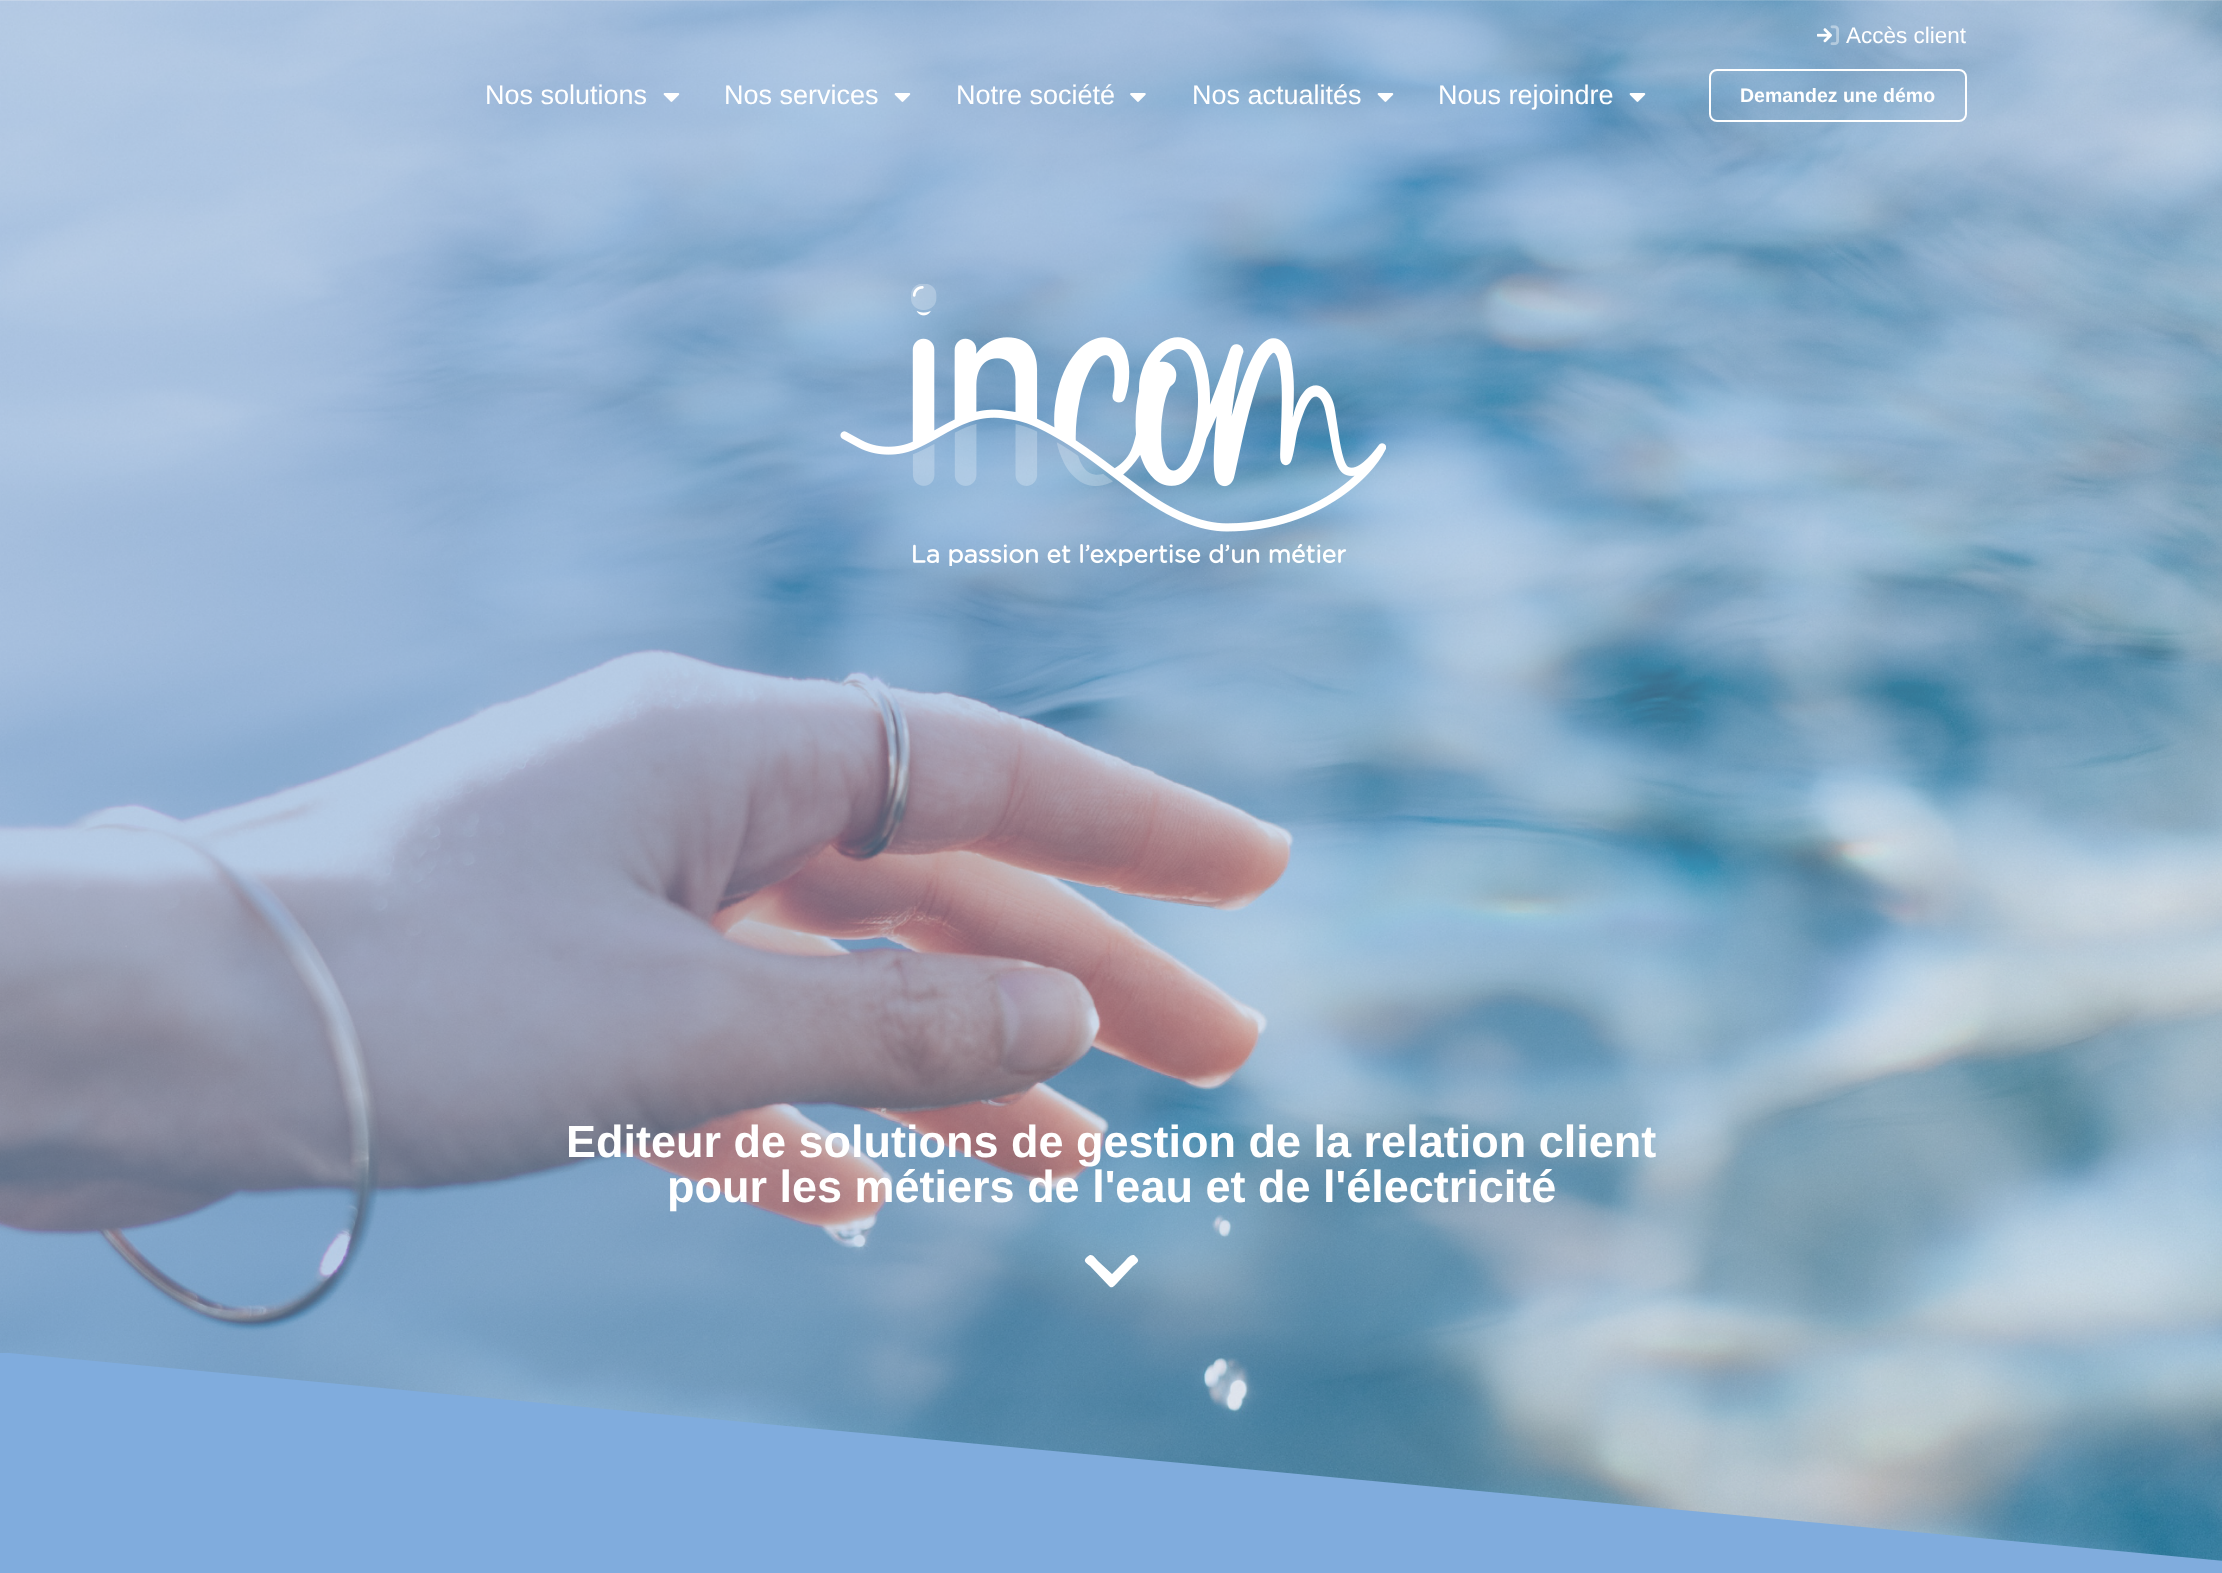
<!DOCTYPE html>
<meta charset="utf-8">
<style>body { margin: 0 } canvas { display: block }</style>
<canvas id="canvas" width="2222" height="1573"></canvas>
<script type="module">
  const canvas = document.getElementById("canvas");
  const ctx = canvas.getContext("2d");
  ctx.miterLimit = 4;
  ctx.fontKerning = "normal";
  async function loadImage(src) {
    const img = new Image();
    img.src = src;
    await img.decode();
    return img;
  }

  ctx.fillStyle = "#ffffff";
  ctx.fillRect(0, 0, 2222, 1573);
  ctx.drawImage(await loadImage("img7.png"), 0, 0, 2222, 1561);
  ctx.drawImage(await loadImage("img1.png"), 1817, 25, 22, 20);
  ctx.font = "22.5px Liberation Sans";
  ctx.fillText("Accès client", 1846, 43);
  ctx.font = "27px Liberation Sans";
  ctx.fillText("Nos solutions", 485, 104);
  ctx.drawImage(await loadImage("img2.png"), 663, 93, 17, 9);
  ctx.fillText("Nos services", 724, 104);
  ctx.drawImage(await loadImage("img3.png"), 894, 93, 17, 9);
  ctx.fillText("Notre société", 956, 104);
  ctx.drawImage(await loadImage("img4.png"), 1130, 93, 16, 9);
  ctx.fillText("Nos actualités", 1192, 104);
  ctx.drawImage(await loadImage("img5.png"), 1377, 93, 17, 9);
  ctx.fillText("Nous rejoindre", 1438, 104);
  ctx.drawImage(await loadImage("img6.png"), 1629, 93, 17, 9);
  ctx.beginPath();
  ctx.roundRect(1710, 70, 256, 51, 7);
  ctx.strokeStyle = "#ffffff";
  ctx.lineWidth = 2;
  ctx.stroke();
  ctx.font = "bold 19.5px Liberation Sans";
  ctx.fillText("Demandez une démo", 1740, 102);
  ctx.drawImage(await loadImage("img8.png"), 840, 284, 546, 282);
  ctx.font = "bold 45px Liberation Sans";
  ctx.fillText("Editeur de solutions de gestion de la relation client", 566, 1157);
  ctx.fillText("pour les métiers de l'eau et de l'électricité", 667, 1202);
  ctx.beginPath();
  ctx.moveTo(1109, 1286);
  ctx.lineTo(1090, 1266);
  ctx.bezierCurveTo(1085, 1262, 1083, 1261, 1087, 1257);
  ctx.bezierCurveTo(1092, 1252, 1094, 1257, 1099, 1262);
  ctx.lineTo(1112, 1274);
  ctx.lineTo(1124, 1262);
  ctx.bezierCurveTo(1126, 1260, 1130, 1254, 1134, 1255);
  ctx.lineTo(1136, 1257);
  ctx.bezierCurveTo(1140, 1261, 1138, 1262, 1133, 1266);
  ctx.lineTo(1118, 1282);
  ctx.bezierCurveTo(1116, 1284, 1112, 1290, 1109, 1286);
  ctx.closePath();
  ctx.fill();
  ctx.save();
  ctx.beginPath();
  ctx.rect(0, 1353, 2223, 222);
  ctx.clip();
  ctx.fillStyle = "#80acdd";
  ctx.beginPath();
  ctx.moveTo(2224, 1561);
  ctx.lineTo(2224, 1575);
  ctx.lineTo(-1, 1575);
  ctx.lineTo(-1, 1352);
  ctx.closePath();
  ctx.fill();
  ctx.restore();
</script>
